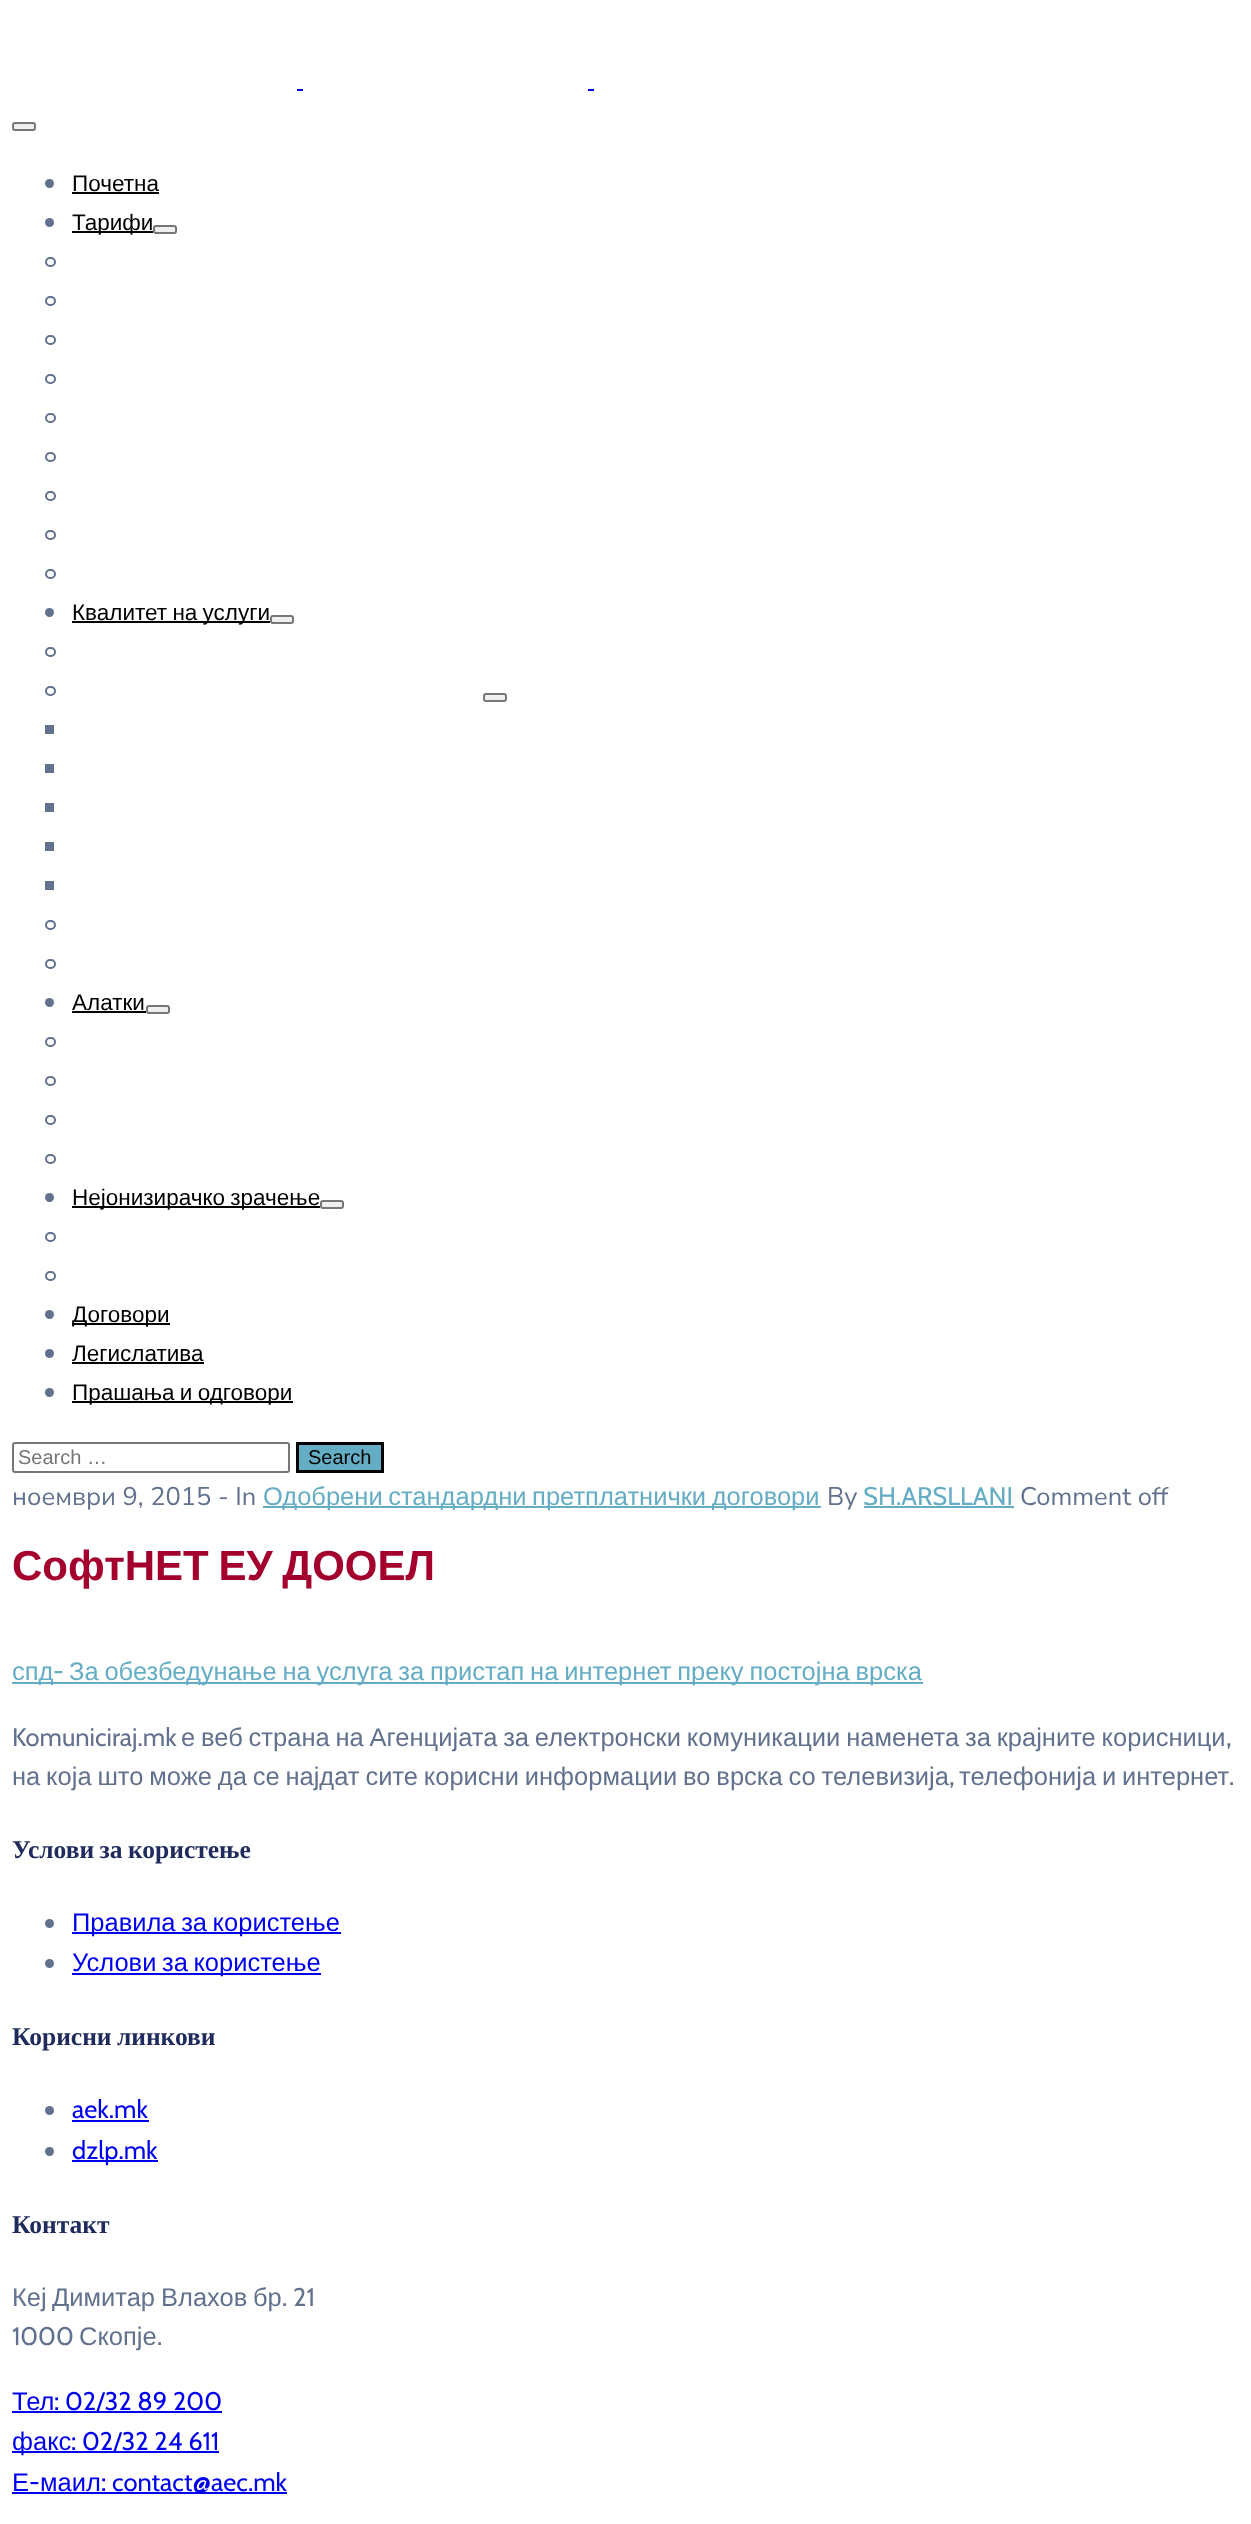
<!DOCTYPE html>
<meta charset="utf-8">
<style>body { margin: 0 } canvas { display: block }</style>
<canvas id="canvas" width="1251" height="2524"></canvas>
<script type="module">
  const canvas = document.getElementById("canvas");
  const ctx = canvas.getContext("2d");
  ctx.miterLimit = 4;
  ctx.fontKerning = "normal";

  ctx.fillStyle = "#ffffff";
  ctx.fillRect(0, 0, 1251, 2524);
  ctx.fillStyle = "#0000ee";
  ctx.fillRect(297, 89, 6, 2);
  ctx.fillRect(588, 89, 6, 2);
  ctx.fillStyle = "#efefef";
  ctx.beginPath();
  ctx.roundRect(13, 123, 22, 7, 2);
  ctx.fill();
  ctx.strokeStyle = "#767676";
  ctx.lineWidth = 2;
  ctx.stroke();
  ctx.fillStyle = "#62718d";
  ctx.beginPath();
  ctx.arc(49.5, 183.5, 4.5, 0, Math.PI * 2);
  ctx.fill();
  ctx.font = "22.5px Liberation Sans";
  ctx.fillStyle = "#000000";
  ctx.fillText("Почетна", 72, 191);
  ctx.fillRect(72, 192, 87, 2);
  ctx.fillStyle = "#62718d";
  ctx.beginPath();
  ctx.arc(49.5, 222.5, 4.5, 0, Math.PI * 2);
  ctx.fill();
  ctx.fillStyle = "#000000";
  ctx.fillRect(72, 231, 81, 2);
  ctx.fillText("Тарифи", 72, 230);
  ctx.fillStyle = "#efefef";
  ctx.beginPath();
  ctx.roundRect(154, 226, 22, 7, 2);
  ctx.fill();
  ctx.stroke();
  ctx.beginPath();
  ctx.roundRect(46, 258, 9, 8, 4);
  ctx.strokeStyle = "#62718d";
  ctx.stroke();
  ctx.beginPath();
  ctx.roundRect(46, 297, 9, 8, 4);
  ctx.stroke();
  ctx.beginPath();
  ctx.roundRect(46, 336, 9, 8, 4);
  ctx.stroke();
  ctx.beginPath();
  ctx.roundRect(46, 375, 9, 8, 4);
  ctx.stroke();
  ctx.beginPath();
  ctx.roundRect(46, 414, 9, 8, 4);
  ctx.stroke();
  ctx.beginPath();
  ctx.roundRect(46, 453, 9, 8, 4);
  ctx.stroke();
  ctx.beginPath();
  ctx.roundRect(46, 492, 9, 8, 4);
  ctx.stroke();
  ctx.beginPath();
  ctx.roundRect(46, 531, 9, 8, 4);
  ctx.stroke();
  ctx.beginPath();
  ctx.roundRect(46, 570, 9, 8, 4);
  ctx.stroke();
  ctx.fillStyle = "#62718d";
  ctx.beginPath();
  ctx.arc(49.5, 612.5, 4.5, 0, Math.PI * 2);
  ctx.fill();
  ctx.fillStyle = "#000000";
  ctx.fillRect(72, 621, 198, 2);
  ctx.wordSpacing = "-1px";
  ctx.fillText("Квалитет на услуги", 72, 620);
  ctx.fillStyle = "#efefef";
  ctx.beginPath();
  ctx.roundRect(271, 616, 22, 7, 2);
  ctx.fill();
  ctx.strokeStyle = "#767676";
  ctx.stroke();
  ctx.beginPath();
  ctx.roundRect(46, 648, 9, 8, 4);
  ctx.strokeStyle = "#62718d";
  ctx.stroke();
  ctx.beginPath();
  ctx.roundRect(46, 687, 9, 8, 4);
  ctx.stroke();
  ctx.beginPath();
  ctx.roundRect(484, 694, 22, 7, 2);
  ctx.fill();
  ctx.strokeStyle = "#767676";
  ctx.stroke();
  ctx.fillStyle = "#62718d";
  ctx.fillRect(45, 725, 9, 9);
  ctx.fillRect(45, 764, 9, 9);
  ctx.fillRect(45, 803, 9, 9);
  ctx.fillRect(45, 842, 9, 9);
  ctx.fillRect(45, 881, 9, 9);
  ctx.beginPath();
  ctx.roundRect(46, 921, 9, 8, 4);
  ctx.strokeStyle = "#62718d";
  ctx.stroke();
  ctx.beginPath();
  ctx.roundRect(46, 960, 9, 8, 4);
  ctx.stroke();
  ctx.beginPath();
  ctx.arc(49.5, 1002.5, 4.5, 0, Math.PI * 2);
  ctx.fill();
  ctx.wordSpacing = "0px";
  ctx.fillStyle = "#000000";
  ctx.fillText("Алатки", 72, 1010);
  ctx.fillRect(72, 1011, 74, 2);
  ctx.fillStyle = "#efefef";
  ctx.beginPath();
  ctx.roundRect(147, 1006, 22, 7, 2);
  ctx.fill();
  ctx.strokeStyle = "#767676";
  ctx.stroke();
  ctx.beginPath();
  ctx.roundRect(46, 1038, 9, 8, 4);
  ctx.strokeStyle = "#62718d";
  ctx.stroke();
  ctx.beginPath();
  ctx.roundRect(46, 1077, 9, 8, 4);
  ctx.stroke();
  ctx.beginPath();
  ctx.roundRect(46, 1116, 9, 8, 4);
  ctx.stroke();
  ctx.beginPath();
  ctx.roundRect(46, 1155, 9, 8, 4);
  ctx.stroke();
  ctx.fillStyle = "#62718d";
  ctx.beginPath();
  ctx.arc(49.5, 1197.5, 4.5, 0, Math.PI * 2);
  ctx.fill();
  ctx.fillStyle = "#000000";
  ctx.fillRect(72, 1206, 248, 2);
  ctx.wordSpacing = "-1px";
  ctx.fillText("Нејонизирачко зрачење", 72, 1205);
  ctx.fillStyle = "#efefef";
  ctx.beginPath();
  ctx.roundRect(321, 1201, 22, 7, 2);
  ctx.fill();
  ctx.strokeStyle = "#767676";
  ctx.stroke();
  ctx.beginPath();
  ctx.roundRect(46, 1233, 9, 8, 4);
  ctx.strokeStyle = "#62718d";
  ctx.stroke();
  ctx.beginPath();
  ctx.roundRect(46, 1272, 9, 8, 4);
  ctx.stroke();
  ctx.fillStyle = "#62718d";
  ctx.beginPath();
  ctx.arc(49.5, 1314.5, 4.5, 0, Math.PI * 2);
  ctx.fill();
  ctx.fillStyle = "#000000";
  ctx.fillRect(72, 1323, 98, 2);
  ctx.wordSpacing = "0px";
  ctx.fillText("Договори", 72, 1322);
  ctx.fillStyle = "#62718d";
  ctx.beginPath();
  ctx.arc(49.5, 1353.5, 4.5, 0, Math.PI * 2);
  ctx.fill();
  ctx.fillStyle = "#000000";
  ctx.fillText("Легислатива", 72, 1361);
  ctx.fillRect(72, 1362, 132, 2);
  ctx.fillStyle = "#62718d";
  ctx.beginPath();
  ctx.arc(49.5, 1392.5, 4.5, 0, Math.PI * 2);
  ctx.fill();
  ctx.fillStyle = "#000000";
  ctx.fillRect(72, 1401, 221, 2);
  ctx.wordSpacing = "-1px";
  ctx.fillText("Прашања и одговори", 72, 1400);
  ctx.beginPath();
  ctx.roundRect(13, 1443, 276, 29, 2);
  ctx.strokeStyle = "#767676";
  ctx.stroke();
  ctx.wordSpacing = "0px";
  ctx.font = "20px Liberation Sans";
  ctx.fillStyle = "#757575";
  ctx.fillText("Search …", 18, 1464);
  ctx.fillStyle = "#65adc5";
  ctx.beginPath();
  ctx.rect(297.5, 1443.5, 85, 28);
  ctx.fill();
  ctx.strokeStyle = "#000000";
  ctx.lineWidth = 3;
  ctx.stroke();
  ctx.fillStyle = "#000000";
  ctx.fillText("Search", 308, 1464);
  ctx.font = "25.5px Nunito Sans";
  ctx.fillStyle = "#62718d";
  ctx.fillText("ноември 9, 2015 - In", 12, 1505);
  ctx.fillStyle = "#65adc5";
  ctx.fillRect(263, 1506, 558, 2);
  ctx.wordSpacing = "-1.5px";
  ctx.font = "25.5px Liberation Sans";
  ctx.fillText("Одобрени стандардни претплатнички договори", 263, 1505);
  ctx.wordSpacing = "0px";
  ctx.font = "25.5px Nunito Sans";
  ctx.fillStyle = "#62718d";
  ctx.fillText("By", 827, 1505);
  ctx.font = "25.5px Cabin";
  ctx.fillStyle = "#65adc5";
  ctx.fillText("SH.ARSLLANI", 863, 1505);
  ctx.fillRect(864, 1506, 150, 2);
  ctx.font = "25.5px Nunito Sans";
  ctx.fillStyle = "#62718d";
  ctx.fillText("Comment off", 1020, 1505);
  ctx.wordSpacing = "-2px";
  ctx.font = "bold 42px Liberation Sans";
  ctx.fillStyle = "#a4002e";
  ctx.fillText("СофтНЕТ ЕУ ДООЕЛ", 12, 1580);
  ctx.fillStyle = "#65adc5";
  ctx.fillRect(12, 1682, 911, 2);
  ctx.wordSpacing = "0px";
  ctx.font = "25.5px Liberation Sans";
  ctx.fillText("спд", 12, 1680);
  ctx.font = "25.5px Cabin";
  ctx.fillText("-", 53, 1680);
  ctx.wordSpacing = "-1.25px";
  ctx.font = "25.5px Liberation Sans";
  ctx.fillText("За обезбедунање на услуга за пристап на интернет преку постојна врска", 69, 1680);
  ctx.wordSpacing = "0px";
  ctx.font = "25.5px Cabin";
  ctx.fillStyle = "#62718d";
  ctx.fillText("Komuniciraj.mk", 12, 1746);
  ctx.wordSpacing = "-1.25px";
  ctx.font = "25.5px Liberation Sans";
  ctx.fillText("е веб страна на Агенцијата за електронски комуникации наменета за крајните корисници", 181, 1746);
  ctx.wordSpacing = "0px";
  ctx.font = "25.5px Cabin";
  ctx.fillText(",", 1226, 1746);
  ctx.wordSpacing = "-1.25px";
  ctx.font = "25.5px Liberation Sans";
  ctx.fillText("на која што може да се најдат сите корисни информации во врска со телевизија", 12, 1785);
  ctx.wordSpacing = "0px";
  ctx.font = "25.5px Cabin";
  ctx.fillText(",", 949, 1785);
  ctx.wordSpacing = "-1.25px";
  ctx.font = "25.5px Liberation Sans";
  ctx.fillText("телефонија и интернет", 959, 1785);
  ctx.wordSpacing = "0px";
  ctx.font = "25.5px Cabin";
  ctx.fillText(".", 1229, 1785);
  ctx.wordSpacing = "-1px";
  ctx.font = "bold 25.5px Liberation Serif";
  ctx.fillStyle = "#202b5d";
  ctx.fillText("Услови за користење", 12, 1858);
  ctx.fillStyle = "#62718d";
  ctx.beginPath();
  ctx.arc(49.5, 1923.5, 4.5, 0, Math.PI * 2);
  ctx.fill();
  ctx.fillStyle = "#0000ee";
  ctx.fillRect(72, 1932, 269, 2);
  ctx.wordSpacing = "-1.5px";
  ctx.font = "25.5px Liberation Sans";
  ctx.fillText("Правила за користење", 72, 1931);
  ctx.fillStyle = "#62718d";
  ctx.beginPath();
  ctx.arc(49.5, 1963.5, 4.5, 0, Math.PI * 2);
  ctx.fill();
  ctx.fillStyle = "#0000ee";
  ctx.fillRect(72, 1973, 249, 2);
  ctx.fillText("Услови за користење", 72, 1971);
  ctx.wordSpacing = "-1px";
  ctx.font = "bold 25.5px Liberation Serif";
  ctx.fillStyle = "#202b5d";
  ctx.fillText("Корисни линкови", 12, 2045);
  ctx.fillStyle = "#62718d";
  ctx.beginPath();
  ctx.arc(49.5, 2110.5, 4.5, 0, Math.PI * 2);
  ctx.fill();
  ctx.wordSpacing = "0px";
  ctx.font = "25.5px Cabin";
  ctx.fillStyle = "#0000ee";
  ctx.fillText("aek.mk", 72, 2118);
  ctx.fillRect(72, 2120, 77, 2);
  ctx.fillStyle = "#62718d";
  ctx.beginPath();
  ctx.arc(49.5, 2151.5, 4.5, 0, Math.PI * 2);
  ctx.fill();
  ctx.fillStyle = "#0000ee";
  ctx.fillRect(72, 2160, 86, 2);
  ctx.fillText("dzlp.mk", 72, 2159);
  ctx.font = "bold 25.5px Liberation Serif";
  ctx.fillStyle = "#202b5d";
  ctx.fillText("Контакт", 12, 2233);
  ctx.font = "25.5px Liberation Sans";
  ctx.fillStyle = "#62718d";
  ctx.fillText("Кеј", 12, 2306);
  ctx.fillText("Димитар", 52, 2306);
  ctx.fillText("Влахов", 161, 2306);
  ctx.fillText("бр", 253, 2306);
  ctx.font = "25.5px Cabin";
  ctx.fillText(". 21", 282, 2306);
  ctx.fillText("1000", 12, 2345);
  ctx.font = "25.5px Liberation Sans";
  ctx.fillText("Скопје", 79, 2345);
  ctx.font = "25.5px Cabin";
  ctx.fillText(".", 157, 2345);
  ctx.font = "25.5px Liberation Sans";
  ctx.fillStyle = "#0000ee";
  ctx.fillText("Тел", 12, 2410);
  ctx.fillRect(12, 2411, 210, 2);
  ctx.font = "25.5px Cabin";
  ctx.fillText(": 02/32 89 200", 54, 2410);
  ctx.fillRect(12, 2451, 207, 2);
  ctx.font = "25.5px Liberation Sans";
  ctx.fillText("факс", 12, 2450);
  ctx.font = "25.5px Cabin";
  ctx.fillText(": 02/32 24 611", 71, 2450);
  ctx.font = "25.5px Liberation Sans";
  ctx.fillText("Е", 12, 2491);
  ctx.font = "25.5px Cabin";
  ctx.fillText("-", 29, 2491);
  ctx.font = "25.5px Liberation Sans";
  ctx.fillText("маил", 40, 2491);
  ctx.fillRect(12, 2492, 275, 2);
  ctx.font = "25.5px Cabin";
  ctx.fillText(": contact@aec.mk", 101, 2491);
</script>
